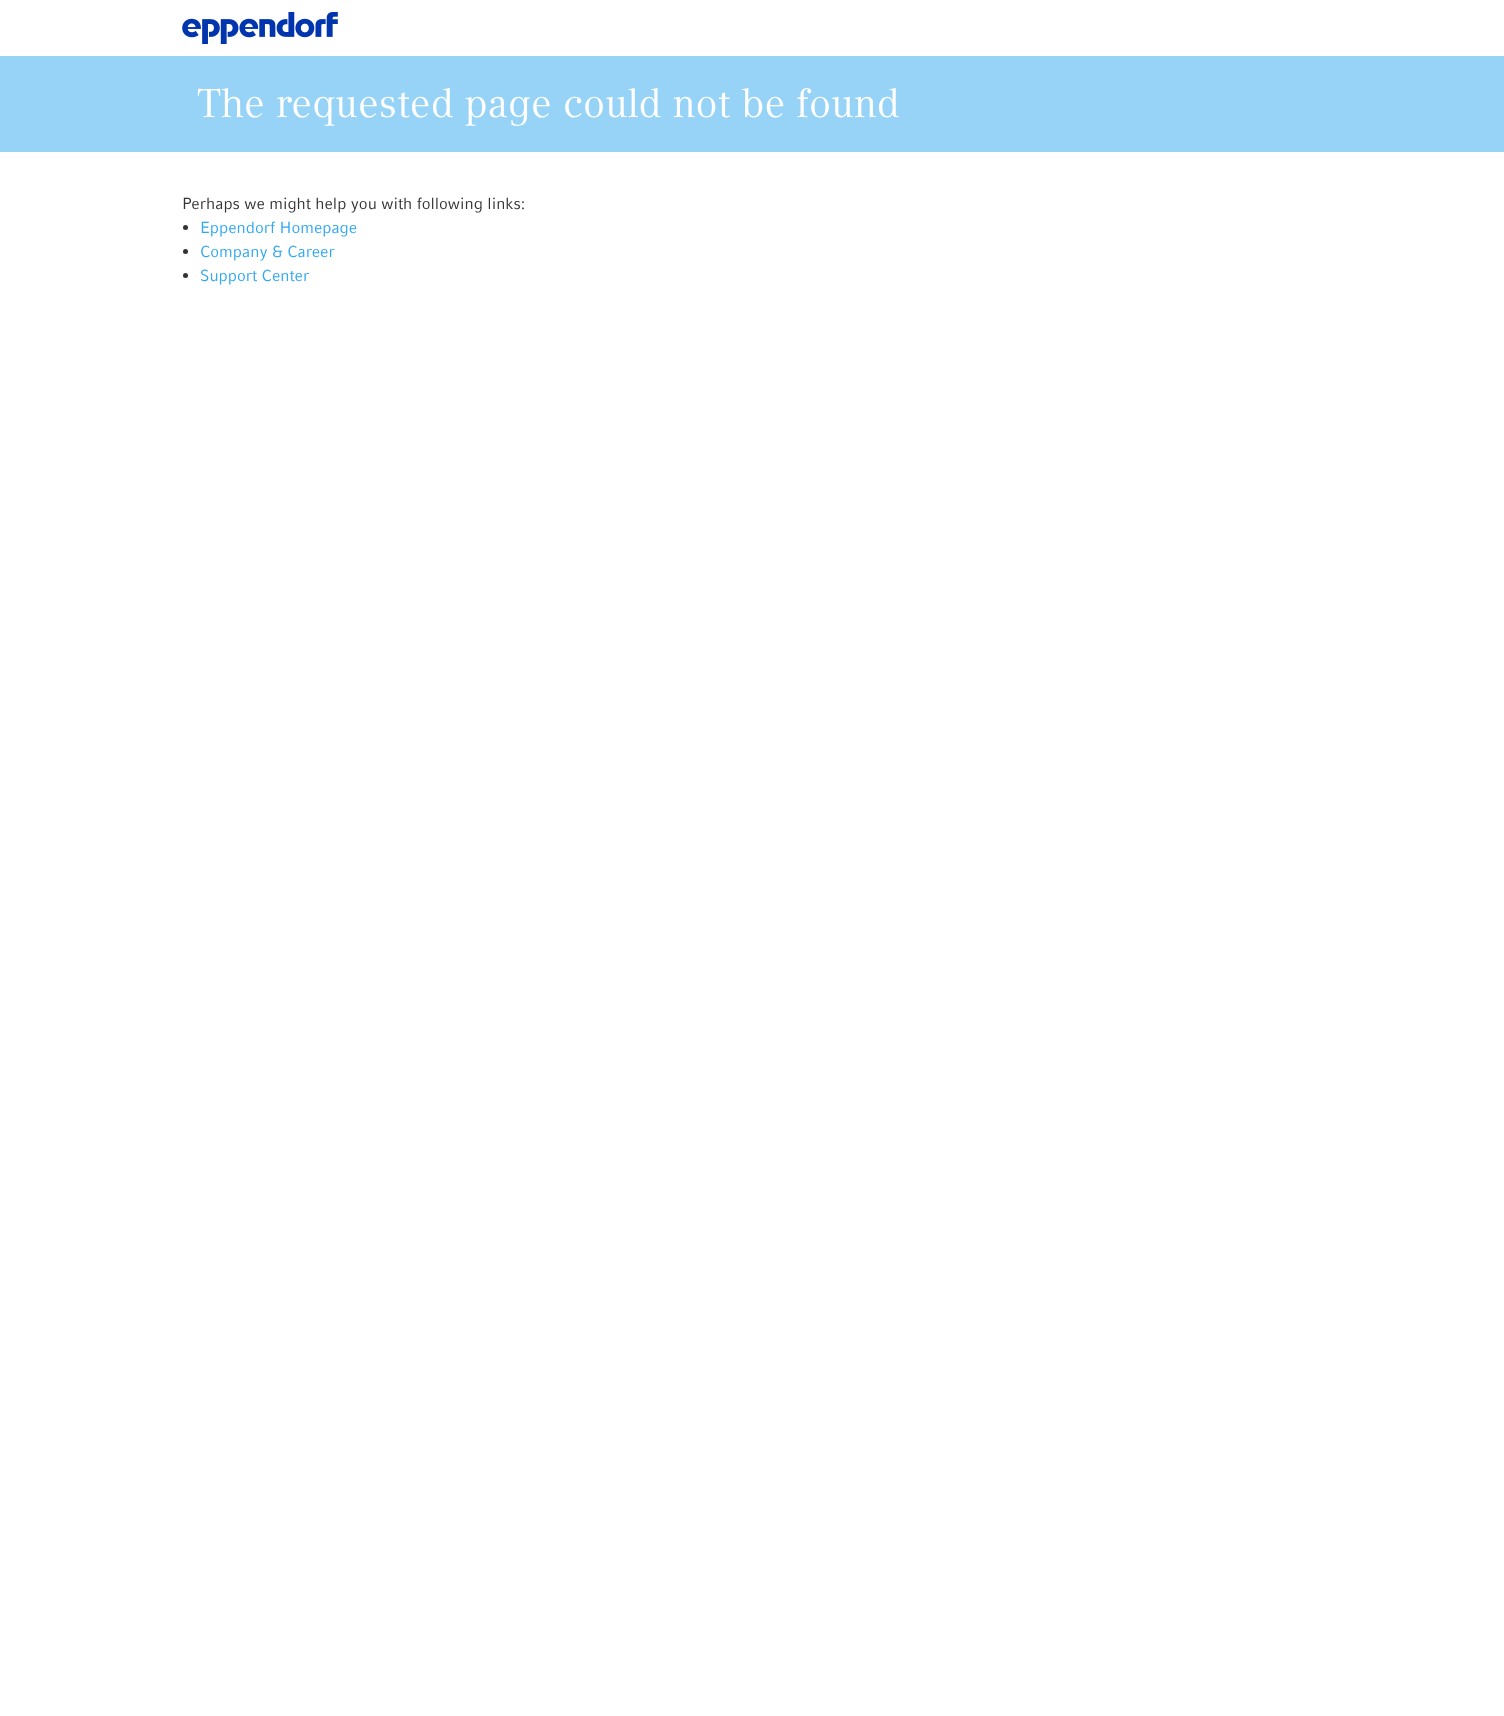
<!DOCTYPE html>
<meta charset="utf-8">
<style>body { margin: 0 } canvas { display: block }</style>
<canvas id="canvas" width="1504" height="1716"></canvas>
<script type="module">
  const canvas = document.getElementById("canvas");
  const ctx = canvas.getContext("2d");
  ctx.miterLimit = 4;
  ctx.fontKerning = "normal";
  async function loadImage(src) {
    const img = new Image();
    img.src = src;
    await img.decode();
    return img;
  }

  ctx.fillStyle = "#ffffff";
  ctx.fillRect(0, 0, 1504, 1716);
  ctx.drawImage(await loadImage("img1.png"), 182, 12, 156, 32);
  ctx.fillStyle = "#96d3f7";
  ctx.fillRect(0, 56, 1504, 96);
  ctx.font = "40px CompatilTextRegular";
  ctx.fillStyle = "#ffffff";
  ctx.fillText("The requested page could not be found", 197, 117);
  ctx.font = "16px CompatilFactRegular";
  ctx.fillStyle = "#333333";
  ctx.fillText("Perhaps we might help you with following links:", 182, 209);
  ctx.beginPath();
  ctx.arc(185.5, 227.5, 2.5, 0, Math.PI * 2);
  ctx.fill();
  ctx.fillStyle = "#2ea8ef";
  ctx.fillText("Eppendorf Homepage", 200, 233);
  ctx.fillStyle = "#333333";
  ctx.beginPath();
  ctx.arc(185.5, 251.5, 2.5, 0, Math.PI * 2);
  ctx.fill();
  ctx.fillStyle = "#2ea8ef";
  ctx.fillText("Company & Career", 200, 257);
  ctx.fillStyle = "#333333";
  ctx.beginPath();
  ctx.arc(185.5, 275.5, 2.5, 0, Math.PI * 2);
  ctx.fill();
  ctx.fillStyle = "#2ea8ef";
  ctx.fillText("Support Center", 200, 281);
</script>
